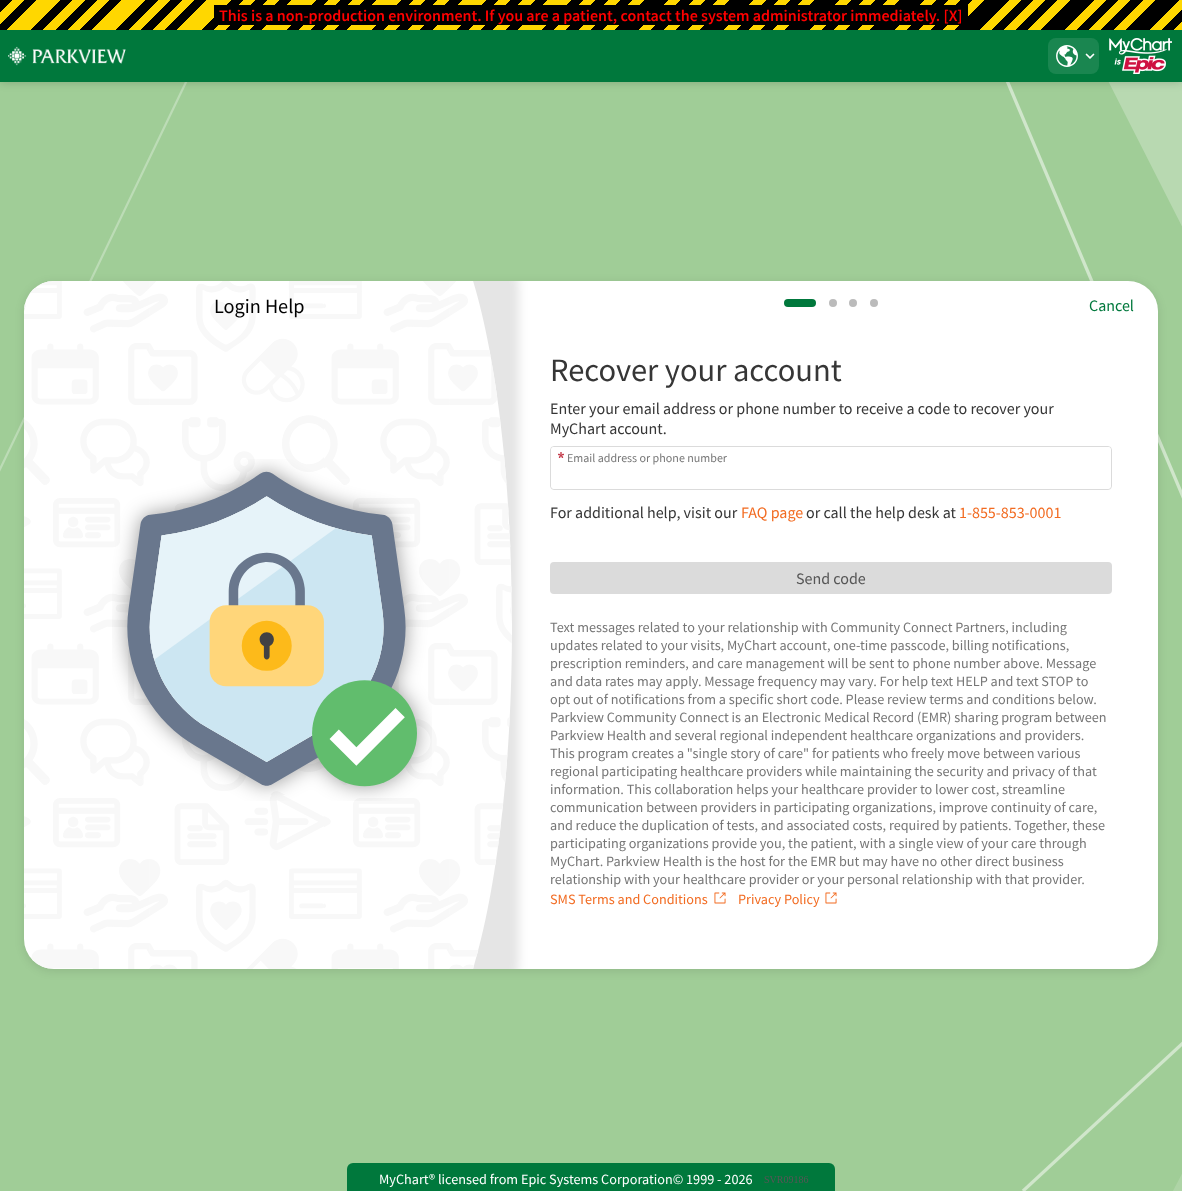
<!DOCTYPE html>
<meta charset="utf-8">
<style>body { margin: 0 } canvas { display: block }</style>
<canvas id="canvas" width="1182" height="1191"></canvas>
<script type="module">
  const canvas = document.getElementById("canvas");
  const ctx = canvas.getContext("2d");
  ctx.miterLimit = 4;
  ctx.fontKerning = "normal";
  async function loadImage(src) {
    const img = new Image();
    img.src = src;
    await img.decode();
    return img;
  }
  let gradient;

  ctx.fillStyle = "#a0cd97";
  ctx.fillRect(0, 0, 1182, 1191);
  ctx.drawImage(await loadImage("img1.png"), 0, 82, 1182, 1109);
  ctx.fillStyle = "rgba(0, 0, 0, 0.2)";
  ctx.filter = "blur(5px)";
  ctx.beginPath();
  ctx.rect(0, 30, 1182, 52);
  ctx.fill();
  ctx.filter = "none";
  gradient = ctx.createLinearGradient(288, -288, 896, 320);
  gradient.addColorStop(0, "#000000");
  gradient.addColorStop(0.01, "#000000");
  gradient.addColorStop(0.01, "#ffd700");
  gradient.addColorStop(0.02, "#ffd700");
  gradient.addColorStop(0.02, "#000000");
  gradient.addColorStop(0.03, "#000000");
  gradient.addColorStop(0.03, "#ffd700");
  gradient.addColorStop(0.05, "#ffd700");
  gradient.addColorStop(0.05, "#000000");
  gradient.addColorStop(0.06, "#000000");
  gradient.addColorStop(0.06, "#ffd700");
  gradient.addColorStop(0.07, "#ffd700");
  gradient.addColorStop(0.07, "#000000");
  gradient.addColorStop(0.08, "#000000");
  gradient.addColorStop(0.08, "#ffd700");
  gradient.addColorStop(0.09, "#ffd700");
  gradient.addColorStop(0.09, "#000000");
  gradient.addColorStop(0.1, "#000000");
  gradient.addColorStop(0.1, "#ffd700");
  gradient.addColorStop(0.12, "#ffd700");
  gradient.addColorStop(0.12, "#000000");
  gradient.addColorStop(0.13, "#000000");
  gradient.addColorStop(0.13, "#ffd700");
  gradient.addColorStop(0.14, "#ffd700");
  gradient.addColorStop(0.14, "#000000");
  gradient.addColorStop(0.15, "#000000");
  gradient.addColorStop(0.15, "#ffd700");
  gradient.addColorStop(0.16, "#ffd700");
  gradient.addColorStop(0.16, "#000000");
  gradient.addColorStop(0.17, "#000000");
  gradient.addColorStop(0.17, "#ffd700");
  gradient.addColorStop(0.19, "#ffd700");
  gradient.addColorStop(0.19, "#000000");
  gradient.addColorStop(0.2, "#000000");
  gradient.addColorStop(0.2, "#ffd700");
  gradient.addColorStop(0.21, "#ffd700");
  gradient.addColorStop(0.21, "#000000");
  gradient.addColorStop(0.22, "#000000");
  gradient.addColorStop(0.22, "#ffd700");
  gradient.addColorStop(0.23, "#ffd700");
  gradient.addColorStop(0.23, "#000000");
  gradient.addColorStop(0.24, "#000000");
  gradient.addColorStop(0.24, "#ffd700");
  gradient.addColorStop(0.26, "#ffd700");
  gradient.addColorStop(0.26, "#000000");
  gradient.addColorStop(0.27, "#000000");
  gradient.addColorStop(0.27, "#ffd700");
  gradient.addColorStop(0.28, "#ffd700");
  gradient.addColorStop(0.28, "#000000");
  gradient.addColorStop(0.29, "#000000");
  gradient.addColorStop(0.29, "#ffd700");
  gradient.addColorStop(0.3, "#ffd700");
  gradient.addColorStop(0.3, "#000000");
  gradient.addColorStop(0.31, "#000000");
  gradient.addColorStop(0.31, "#ffd700");
  gradient.addColorStop(0.33, "#ffd700");
  gradient.addColorStop(0.33, "#000000");
  gradient.addColorStop(0.34, "#000000");
  gradient.addColorStop(0.34, "#ffd700");
  gradient.addColorStop(0.35, "#ffd700");
  gradient.addColorStop(0.35, "#000000");
  gradient.addColorStop(0.36, "#000000");
  gradient.addColorStop(0.36, "#ffd700");
  gradient.addColorStop(0.37, "#ffd700");
  gradient.addColorStop(0.37, "#000000");
  gradient.addColorStop(0.38, "#000000");
  gradient.addColorStop(0.38, "#ffd700");
  gradient.addColorStop(0.4, "#ffd700");
  gradient.addColorStop(0.4, "#000000");
  gradient.addColorStop(0.41, "#000000");
  gradient.addColorStop(0.41, "#ffd700");
  gradient.addColorStop(0.42, "#ffd700");
  gradient.addColorStop(0.42, "#000000");
  gradient.addColorStop(0.43, "#000000");
  gradient.addColorStop(0.43, "#ffd700");
  gradient.addColorStop(0.44, "#ffd700");
  gradient.addColorStop(0.44, "#000000");
  gradient.addColorStop(0.45, "#000000");
  gradient.addColorStop(0.45, "#ffd700");
  gradient.addColorStop(0.47, "#ffd700");
  gradient.addColorStop(0.47, "#000000");
  gradient.addColorStop(0.48, "#000000");
  gradient.addColorStop(0.48, "#ffd700");
  gradient.addColorStop(0.49, "#ffd700");
  gradient.addColorStop(0.49, "#000000");
  gradient.addColorStop(0.5, "#000000");
  gradient.addColorStop(0.5, "#ffd700");
  gradient.addColorStop(0.51, "#ffd700");
  gradient.addColorStop(0.51, "#000000");
  gradient.addColorStop(0.52, "#000000");
  gradient.addColorStop(0.52, "#ffd700");
  gradient.addColorStop(0.53, "#ffd700");
  gradient.addColorStop(0.53, "#000000");
  gradient.addColorStop(0.55, "#000000");
  gradient.addColorStop(0.55, "#ffd700");
  gradient.addColorStop(0.56, "#ffd700");
  gradient.addColorStop(0.56, "#000000");
  gradient.addColorStop(0.57, "#000000");
  gradient.addColorStop(0.57, "#ffd700");
  gradient.addColorStop(0.58, "#ffd700");
  gradient.addColorStop(0.58, "#000000");
  gradient.addColorStop(0.59, "#000000");
  gradient.addColorStop(0.59, "#ffd700");
  gradient.addColorStop(0.6, "#ffd700");
  gradient.addColorStop(0.6, "#000000");
  gradient.addColorStop(0.62, "#000000");
  gradient.addColorStop(0.62, "#ffd700");
  gradient.addColorStop(0.63, "#ffd700");
  gradient.addColorStop(0.63, "#000000");
  gradient.addColorStop(0.64, "#000000");
  gradient.addColorStop(0.64, "#ffd700");
  gradient.addColorStop(0.65, "#ffd700");
  gradient.addColorStop(0.65, "#000000");
  gradient.addColorStop(0.66, "#000000");
  gradient.addColorStop(0.66, "#ffd700");
  gradient.addColorStop(0.67, "#ffd700");
  gradient.addColorStop(0.67, "#000000");
  gradient.addColorStop(0.69, "#000000");
  gradient.addColorStop(0.69, "#ffd700");
  gradient.addColorStop(0.7, "#ffd700");
  gradient.addColorStop(0.7, "#000000");
  gradient.addColorStop(0.71, "#000000");
  gradient.addColorStop(0.71, "#ffd700");
  gradient.addColorStop(0.72, "#ffd700");
  gradient.addColorStop(0.72, "#000000");
  gradient.addColorStop(0.73, "#000000");
  gradient.addColorStop(0.73, "#ffd700");
  gradient.addColorStop(0.74, "#ffd700");
  gradient.addColorStop(0.74, "#000000");
  gradient.addColorStop(0.76, "#000000");
  gradient.addColorStop(0.76, "#ffd700");
  gradient.addColorStop(0.77, "#ffd700");
  gradient.addColorStop(0.77, "#000000");
  gradient.addColorStop(0.78, "#000000");
  gradient.addColorStop(0.78, "#ffd700");
  gradient.addColorStop(0.79, "#ffd700");
  gradient.addColorStop(0.79, "#000000");
  gradient.addColorStop(0.8, "#000000");
  gradient.addColorStop(0.8, "#ffd700");
  gradient.addColorStop(0.81, "#ffd700");
  gradient.addColorStop(0.81, "#000000");
  gradient.addColorStop(0.83, "#000000");
  gradient.addColorStop(0.83, "#ffd700");
  gradient.addColorStop(0.84, "#ffd700");
  gradient.addColorStop(0.84, "#000000");
  gradient.addColorStop(0.85, "#000000");
  gradient.addColorStop(0.85, "#ffd700");
  gradient.addColorStop(0.86, "#ffd700");
  gradient.addColorStop(0.86, "#000000");
  gradient.addColorStop(0.87, "#000000");
  gradient.addColorStop(0.87, "#ffd700");
  gradient.addColorStop(0.88, "#ffd700");
  gradient.addColorStop(0.88, "#000000");
  gradient.addColorStop(0.9, "#000000");
  gradient.addColorStop(0.9, "#ffd700");
  gradient.addColorStop(0.91, "#ffd700");
  gradient.addColorStop(0.91, "#000000");
  gradient.addColorStop(0.92, "#000000");
  gradient.addColorStop(0.92, "#ffd700");
  gradient.addColorStop(0.93, "#ffd700");
  gradient.addColorStop(0.93, "#000000");
  gradient.addColorStop(0.94, "#000000");
  gradient.addColorStop(0.94, "#ffd700");
  gradient.addColorStop(0.95, "#ffd700");
  gradient.addColorStop(0.95, "#000000");
  gradient.addColorStop(0.97, "#000000");
  gradient.addColorStop(0.97, "#ffd700");
  gradient.addColorStop(0.98, "#ffd700");
  gradient.addColorStop(0.98, "#000000");
  gradient.addColorStop(0.99, "#000000");
  gradient.addColorStop(0.99, "#ffd700");
  gradient.addColorStop(1, "#ffd700");
  ctx.fillStyle = gradient;
  ctx.fillRect(0, 0, 1182, 30);
  ctx.fillStyle = "#000000";
  ctx.fillRect(214, 5, 754, 20);
  ctx.font = "600 16px Source Sans Pro";
  ctx.fillStyle = "#ff0000";
  ctx.fillText("This is a non-production environment. If you are a patient, contact the system administrator immediately. [X]", 219, 21);
  ctx.fillStyle = "#00783c";
  ctx.fillRect(0, 30, 1182, 52);
  ctx.drawImage(await loadImage("img2.png"), 8, 46, 118, 20);
  ctx.fillStyle = "#1a8650";
  ctx.beginPath();
  ctx.roundRect(1048, 38, 51, 36, 8);
  ctx.fill();
  ctx.drawImage(await loadImage("img3.png"), 1056, 45, 22, 22);
  ctx.drawImage(await loadImage("img4.png"), 1085, 53, 10, 6);
  ctx.drawImage(await loadImage("img5.png"), 1109, 38, 63, 36);
  ctx.fillStyle = "rgba(0, 0, 0, 0.1)";
  ctx.filter = "blur(5px)";
  ctx.beginPath();
  ctx.roundRect(24, 283, 1134, 688, 30);
  ctx.fill();
  ctx.filter = "none";
  ctx.fillStyle = "#ffffff";
  ctx.beginPath();
  ctx.roundRect(24, 281, 1134, 688, 30);
  ctx.fill();
  ctx.save();
  ctx.beginPath();
  ctx.roundRect(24, 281, 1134, 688, 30);
  ctx.clip();
  ctx.beginPath();
  ctx.moveTo(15, 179);
  ctx.lineTo(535, 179);
  ctx.lineTo(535, 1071);
  ctx.lineTo(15, 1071);
  ctx.closePath();
  ctx.moveTo(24, 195);
  ctx.lineTo(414.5, 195);
  ctx.bezierCurveTo(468.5, 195, 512, 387.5, 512, 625);
  ctx.bezierCurveTo(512, 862.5, 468.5, 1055, 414.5, 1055);
  ctx.lineTo(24, 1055);
  ctx.closePath();
  ctx.clip("evenodd");
  ctx.fillStyle = "rgba(0, 0, 0, 0.1)";
  ctx.filter = "blur(5px)";
  ctx.beginPath();
  ctx.roundRect(31, 195, 488, 860, 98);
  ctx.fill();
  ctx.filter = "none";
  ctx.restore();
  ctx.drawImage(await loadImage("img6.png"), 24, 281, 488, 688);
  ctx.font = "20.25px Source Sans Pro";
  ctx.fillStyle = "#000000";
  ctx.fillText("Login Help", 214, 313);
  ctx.fillStyle = "#00783c";
  ctx.beginPath();
  ctx.roundRect(784, 299, 32, 8, 4);
  ctx.fill();
  ctx.fillStyle = "#bbbbbb";
  ctx.beginPath();
  ctx.arc(833, 303, 4, 0, Math.PI * 2);
  ctx.fill();
  ctx.beginPath();
  ctx.arc(853, 303, 4, 0, Math.PI * 2);
  ctx.fill();
  ctx.beginPath();
  ctx.arc(874, 303, 4, 0, Math.PI * 2);
  ctx.fill();
  ctx.font = "16px Source Sans Pro";
  ctx.fillStyle = "#00783c";
  ctx.fillText("Cancel", 1089, 311);
  ctx.drawImage(await loadImage("img7.png"), 112, 459, 320, 342);
  ctx.font = "32.5px Source Sans Pro";
  ctx.fillStyle = "#363636";
  ctx.fillText("Recover your account", 550, 381);
  ctx.font = "16px Source Sans Pro";
  ctx.fillText("Enter your email address or phone number to receive a code to recover your", 550, 414);
  ctx.fillText("MyChart account.", 550, 434);
  ctx.beginPath();
  ctx.roundRect(550.5, 446.5, 561, 43, 3.5);
  ctx.strokeStyle = "#dbdbdb";
  ctx.stroke();
  ctx.save();
  ctx.beginPath();
  ctx.roundRect(551, 447, 560, 42, 3);
  ctx.clip();
  ctx.fillStyle = "#ffffff";
  ctx.beginPath();
  ctx.roundRect(551, 446, 560, 43, 4);
  ctx.fill();
  ctx.restore();
  ctx.drawImage(await loadImage("img8.png"), 558, 452, 6, 6);
  ctx.font = "12px Source Sans Pro";
  ctx.fillStyle = "#767676";
  ctx.fillText("Email address or phone number", 567, 462);
  ctx.font = "16px Source Sans Pro";
  ctx.fillStyle = "#363636";
  ctx.fillText("For additional help, visit our", 550, 518);
  ctx.fillStyle = "#f26b21";
  ctx.fillText("FAQ page", 741, 518);
  ctx.fillStyle = "#363636";
  ctx.fillText("or call the help desk at", 806, 518);
  ctx.fillStyle = "#f26b21";
  ctx.fillText("1-855-853-0001", 959, 518);
  ctx.fillStyle = "#dbdbdb";
  ctx.beginPath();
  ctx.roundRect(550, 562, 562, 32, 4);
  ctx.fill();
  ctx.fillStyle = "#565656";
  ctx.fillText("Send code", 796, 584);
  ctx.font = "14.2px Source Sans Pro";
  ctx.fillStyle = "#767676";
  ctx.fillText("Text messages related to your relationship with Community Connect Partners, including", 550, 632);
  ctx.fillText("updates related to your visits, MyChart account, one-time passcode, billing notifications,", 550, 650);
  ctx.fillText("prescription reminders, and care management will be sent to phone number above. Message", 550, 668);
  ctx.fillText("and data rates may apply. Message frequency may vary. For help text HELP and text STOP to", 550, 686);
  ctx.fillText("opt out of notifications from a specific short code. Please review terms and conditions below.", 550, 704);
  ctx.fillText("Parkview Community Connect is an Electronic Medical Record (EMR) sharing program between", 550, 722);
  ctx.fillText("Parkview Health and several regional independent healthcare organizations and providers.", 550, 740);
  ctx.fillText("This program creates a \"single story of care\" for patients who freely move between various", 550, 758);
  ctx.fillText("regional participating healthcare providers while maintaining the security and privacy of that", 550, 776);
  ctx.fillText("information. This collaboration helps your healthcare provider to lower cost, streamline", 550, 794);
  ctx.fillText("communication between providers in participating organizations, improve continuity of care,", 550, 812);
  ctx.fillText("and reduce the duplication of tests, and associated costs, required by patients. Together, these", 550, 830);
  ctx.fillText("participating organizations provide you, the patient, with a single view of your care through", 550, 848);
  ctx.fillText("MyChart. Parkview Health is the host for the EMR but may have no other direct business", 550, 866);
  ctx.fillText("relationship with your healthcare provider or your personal relationship with that provider.", 550, 884);
  ctx.fillStyle = "#f26b21";
  ctx.fillText("SMS Terms and Conditions", 550, 904);
  ctx.drawImage(await loadImage("img9.png"), 714, 892, 12, 12);
  ctx.fillText("Privacy Policy", 738, 904);
  ctx.drawImage(await loadImage("img9.png"), 825, 892, 12, 12);
  ctx.fillStyle = "#00783c";
  ctx.beginPath();
  ctx.roundRect(347, 1163, 488, 28, [6, 6, 0, 0]);
  ctx.fill();
  ctx.fillStyle = "#ffffff";
  ctx.fillText("MyChart® licensed from Epic Systems Corporation© 1999 - 2026", 379, 1184);
  ctx.drawImage(await loadImage("img10.png"), 764, 1176, 45, 7);
</script>
